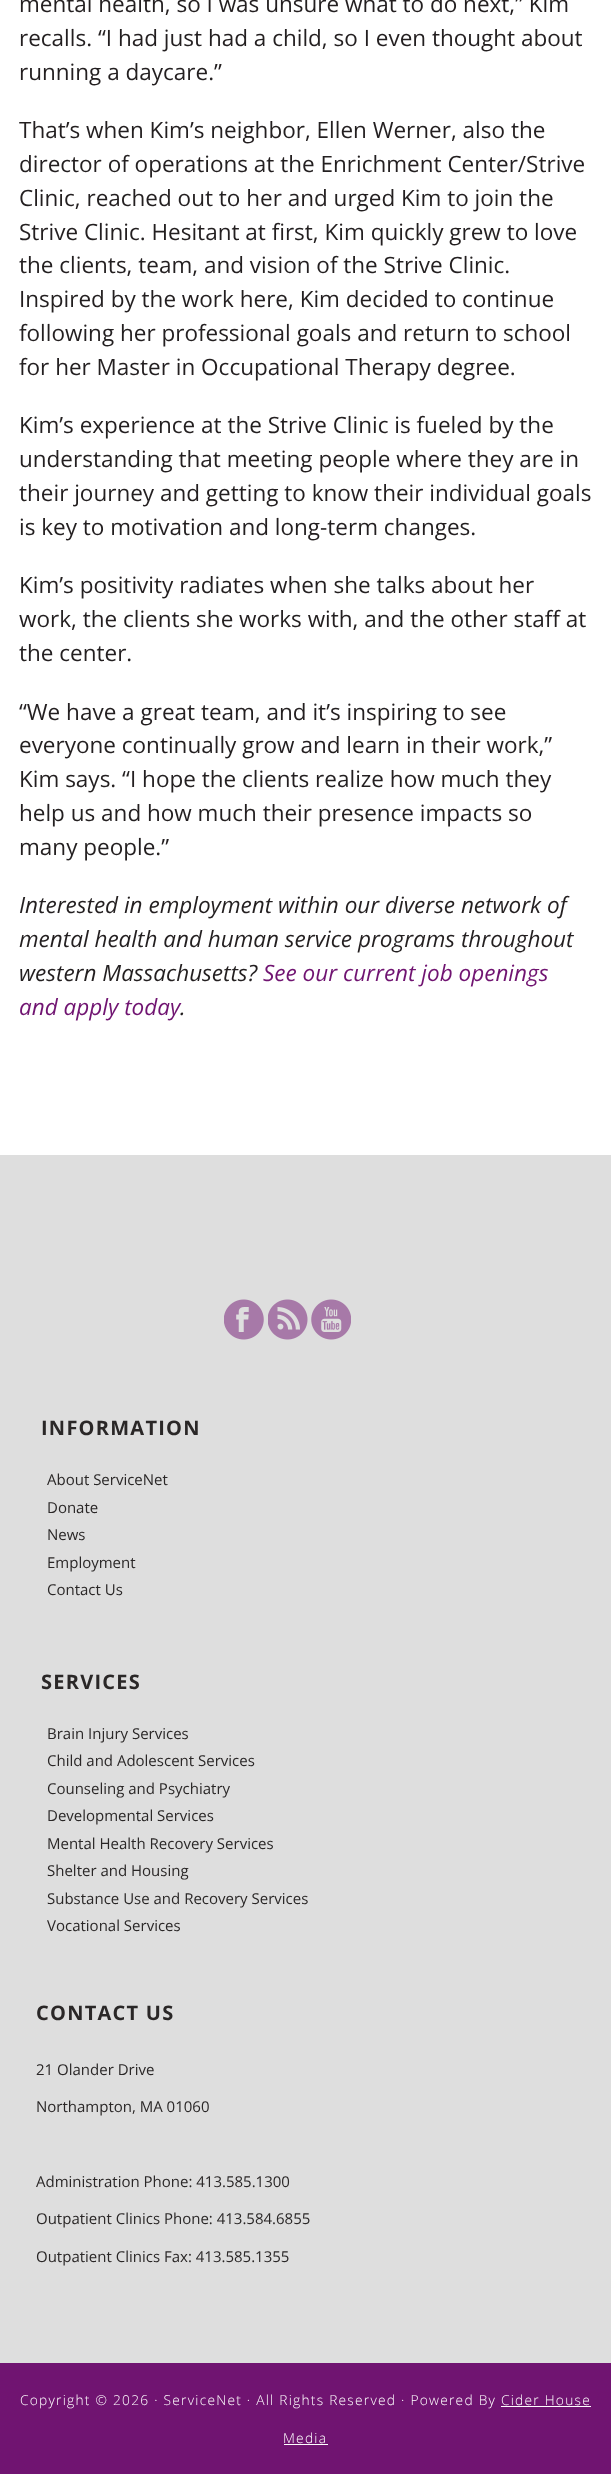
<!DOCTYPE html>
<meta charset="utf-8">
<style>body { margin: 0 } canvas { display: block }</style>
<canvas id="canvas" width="611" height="2474"></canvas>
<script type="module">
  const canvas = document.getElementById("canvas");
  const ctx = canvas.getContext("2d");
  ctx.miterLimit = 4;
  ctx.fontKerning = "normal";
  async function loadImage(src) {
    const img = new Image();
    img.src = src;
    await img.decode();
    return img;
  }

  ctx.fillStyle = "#ffffff";
  ctx.fillRect(0, 0, 611, 2474);
  ctx.font = "22.5px Open Sans";
  ctx.fillStyle = "#231f20";
  ctx.fillText("mental health, so I was unsure what to do next,” Kim", 19, 12);
  ctx.fillText("recalls. “I had just had a child, so I even thought about", 19, 46);
  ctx.fillText("running a daycare.”", 19, 80);
  ctx.fillText("That’s when Kim’s neighbor, Ellen Werner, also the", 19, 138);
  ctx.fillText("director of operations at the Enrichment Center/Strive", 19, 172);
  ctx.fillText("Clinic, reached out to her and urged Kim to join the", 19, 206);
  ctx.fillText("Strive Clinic. Hesitant at first, Kim quickly grew to love", 19, 240);
  ctx.fillText("the clients, team, and vision of the Strive Clinic.", 19, 273);
  ctx.fillText("Inspired by the work here, Kim decided to continue", 19, 307);
  ctx.fillText("following her professional goals and return to school", 19, 341);
  ctx.fillText("for her Master in Occupational Therapy degree.", 19, 375);
  ctx.fillText("Kim’s experience at the Strive Clinic is fueled by the", 19, 433);
  ctx.fillText("understanding that meeting people where they are in", 19, 467);
  ctx.fillText("their journey and getting to know their individual goals", 19, 501);
  ctx.fillText("is key to motivation and long-term changes.", 19, 535);
  ctx.fillText("Kim’s positivity radiates when she talks about her", 19, 593);
  ctx.fillText("work, the clients she works with, and the other staff at", 19, 627);
  ctx.fillText("the center.", 19, 661);
  ctx.fillText("“We have a great team, and it’s inspiring to see", 19, 720);
  ctx.fillText("everyone continually grow and learn in their work,”", 19, 753);
  ctx.fillText("Kim says. “I hope the clients realize how much they", 19, 787);
  ctx.fillText("help us and how much their presence impacts so", 19, 821);
  ctx.fillText("many people.”", 19, 855);
  ctx.font = "italic 22.5px Open Sans";
  ctx.fillText("Interested in employment within our diverse network of", 19, 913);
  ctx.fillText("mental health and human service programs throughout", 19, 947);
  ctx.fillText("western Massachusetts?", 19, 981);
  ctx.fillStyle = "#701471";
  ctx.fillText("See our current job openings", 263, 981);
  ctx.fillText("and apply today", 19, 1015);
  ctx.fillStyle = "#231f20";
  ctx.fillText(".", 180, 1015);
  ctx.fillStyle = "#dedede";
  ctx.fillRect(0, 1155, 611, 1208);
  ctx.drawImage(await loadImage("img1.png"), 224, 1299, 40, 41);
  ctx.drawImage(await loadImage("img2.png"), 268, 1299, 40, 41);
  ctx.drawImage(await loadImage("img3.png"), 311, 1299, 40, 41);
  ctx.letterSpacing = "1.25px";
  ctx.font = "bold 20px Open Sans";
  ctx.fillStyle = "#2a2727";
  ctx.fillText("INFORMATION", 41, 1435);
  ctx.letterSpacing = "0px";
  ctx.font = "15px Open Sans";
  ctx.fillText("About ServiceNet", 47, 1485);
  ctx.fillText("Donate", 47, 1513);
  ctx.fillText("News", 47, 1540);
  ctx.fillText("Employment", 47, 1568);
  ctx.fillText("Contact Us", 47, 1595);
  ctx.letterSpacing = "1.25px";
  ctx.font = "bold 20px Open Sans";
  ctx.fillText("SERVICES", 41, 1689);
  ctx.letterSpacing = "0px";
  ctx.font = "15px Open Sans";
  ctx.fillText("Brain Injury Services", 47, 1739);
  ctx.fillText("Child and Adolescent Services", 47, 1766);
  ctx.fillText("Counseling and Psychiatry", 47, 1794);
  ctx.fillText("Developmental Services", 47, 1821);
  ctx.fillText("Mental Health Recovery Services", 47, 1849);
  ctx.fillText("Shelter and Housing", 47, 1876);
  ctx.fillText("Substance Use and Recovery Services", 47, 1904);
  ctx.fillText("Vocational Services", 47, 1931);
  ctx.letterSpacing = "1.25px";
  ctx.font = "bold 20px Open Sans";
  ctx.fillText("CONTACT US", 36, 2020);
  ctx.letterSpacing = "0px";
  ctx.font = "15px Open Sans";
  ctx.fillText("21 Olander Drive", 36, 2075);
  ctx.fillText("Northampton, MA 01060", 36, 2112);
  ctx.fillText("Administration Phone: 413.585.1300", 36, 2187);
  ctx.fillText("Outpatient Clinics Phone: 413.584.6855", 36, 2224);
  ctx.fillText("Outpatient Clinics Fax: 413.585.1355", 36, 2262);
  ctx.fillStyle = "#701471";
  ctx.fillRect(0, 2363, 611, 111);
  ctx.letterSpacing = "1.25px";
  ctx.font = "300 13.75px Open Sans";
  ctx.fillStyle = "#ffffff";
  ctx.fillText("Copyright © 2026 · ServiceNet · All Rights Reserved · Powered By Cider House", 20, 2405);
  ctx.fillRect(501, 2406, 90, 1);
  ctx.fillText("Media", 283, 2443);
  ctx.fillRect(284, 2444, 44, 1);
</script>
